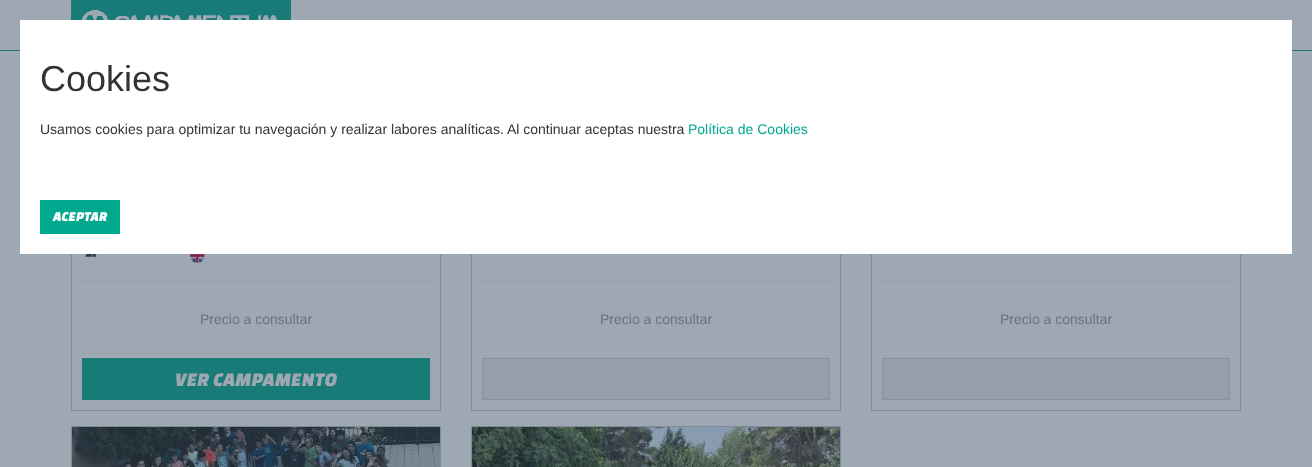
<!DOCTYPE html>
<meta charset="utf-8">
<style>body { margin: 0 } canvas { display: block }</style>
<canvas id="canvas" width="1312" height="467"></canvas>
<script type="module">
  const canvas = document.getElementById("canvas");
  const ctx = canvas.getContext("2d");
  ctx.miterLimit = 4;
  ctx.fontKerning = "normal";
  async function loadImage(src) {
    const img = new Image();
    img.src = src;
    await img.decode();
    return img;
  }

  ctx.fillStyle = "#9ea8b2";
  ctx.fillRect(0, 0, 1312, 467);
  ctx.strokeStyle = "#808b95";
  ctx.strokeRect(71.5, -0.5, 369, 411);
  ctx.strokeRect(471.5, -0.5, 369, 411);
  ctx.strokeRect(871.5, -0.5, 369, 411);
  ctx.fillRect(71, 0, 1170, 50);
  ctx.fillStyle = "#197b77";
  ctx.fillRect(0, 50, 1312, 1);
  ctx.fillRect(71, 0, 220, 20);
  ctx.drawImage(await loadImage("img1.png"), 81, 10, 196, 10);
  ctx.fillStyle = "#ffffff";
  ctx.fillRect(20, 20, 1272, 234);
  ctx.font = "36px Arimo";
  ctx.fillStyle = "#333333";
  ctx.fillText("Cookies", 40, 91);
  ctx.font = "14px Arimo";
  ctx.fillText("Usamos cookies para optimizar tu navegación y realizar labores analíticas. Al continuar aceptas nuestra", 40, 134);
  ctx.fillStyle = "#00a98e";
  ctx.fillText("Política de Cookies", 688, 134);
  ctx.fillRect(40, 200, 80, 34);
  ctx.font = "italic 14px Changa One";
  ctx.fillStyle = "#ffffff";
  ctx.fillText("ACEPTAR", 53, 221);
  ctx.drawImage(await loadImage("img2.png"), 85, 254, 12, 3);
  ctx.drawImage(await loadImage("img3.png"), 190, 254, 15, 9);
  ctx.fillStyle = "#949ea8";
  ctx.fillRect(82, 281, 348, 1);
  ctx.font = "14px Arimo";
  ctx.fillStyle = "#69737d";
  ctx.fillText("Precio a consultar", 200, 324);
  ctx.fillStyle = "#197b77";
  ctx.fillRect(82, 358, 348, 42);
  ctx.font = "italic 20px Changa One";
  ctx.fillStyle = "#9ea8b2";
  ctx.fillText("VER CAMPAMENTO", 175, 386);
  ctx.fillStyle = "#949ea8";
  ctx.fillRect(482, 281, 348, 1);
  ctx.font = "14px Arimo";
  ctx.fillStyle = "#69737d";
  ctx.fillText("Precio a consultar", 600, 324);
  ctx.fillStyle = "#959fa9";
  ctx.beginPath();
  ctx.rect(482.5, 358.5, 347, 41);
  ctx.fill();
  ctx.strokeStyle = "#88929c";
  ctx.stroke();
  ctx.fillStyle = "#949ea8";
  ctx.fillRect(882, 281, 348, 1);
  ctx.fillStyle = "#69737d";
  ctx.fillText("Precio a consultar", 1000, 324);
  ctx.fillStyle = "#959fa9";
  ctx.beginPath();
  ctx.rect(882.5, 358.5, 347, 41);
  ctx.fill();
  ctx.stroke();
  ctx.strokeStyle = "#808b95";
  ctx.strokeRect(71.5, 426.5, 369, 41);
  ctx.drawImage(await loadImage("img4.png"), 72, 427, 368, 40);
  ctx.strokeRect(471.5, 426.5, 369, 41);
  ctx.drawImage(await loadImage("img5.png"), 472, 427, 368, 40);
</script>
